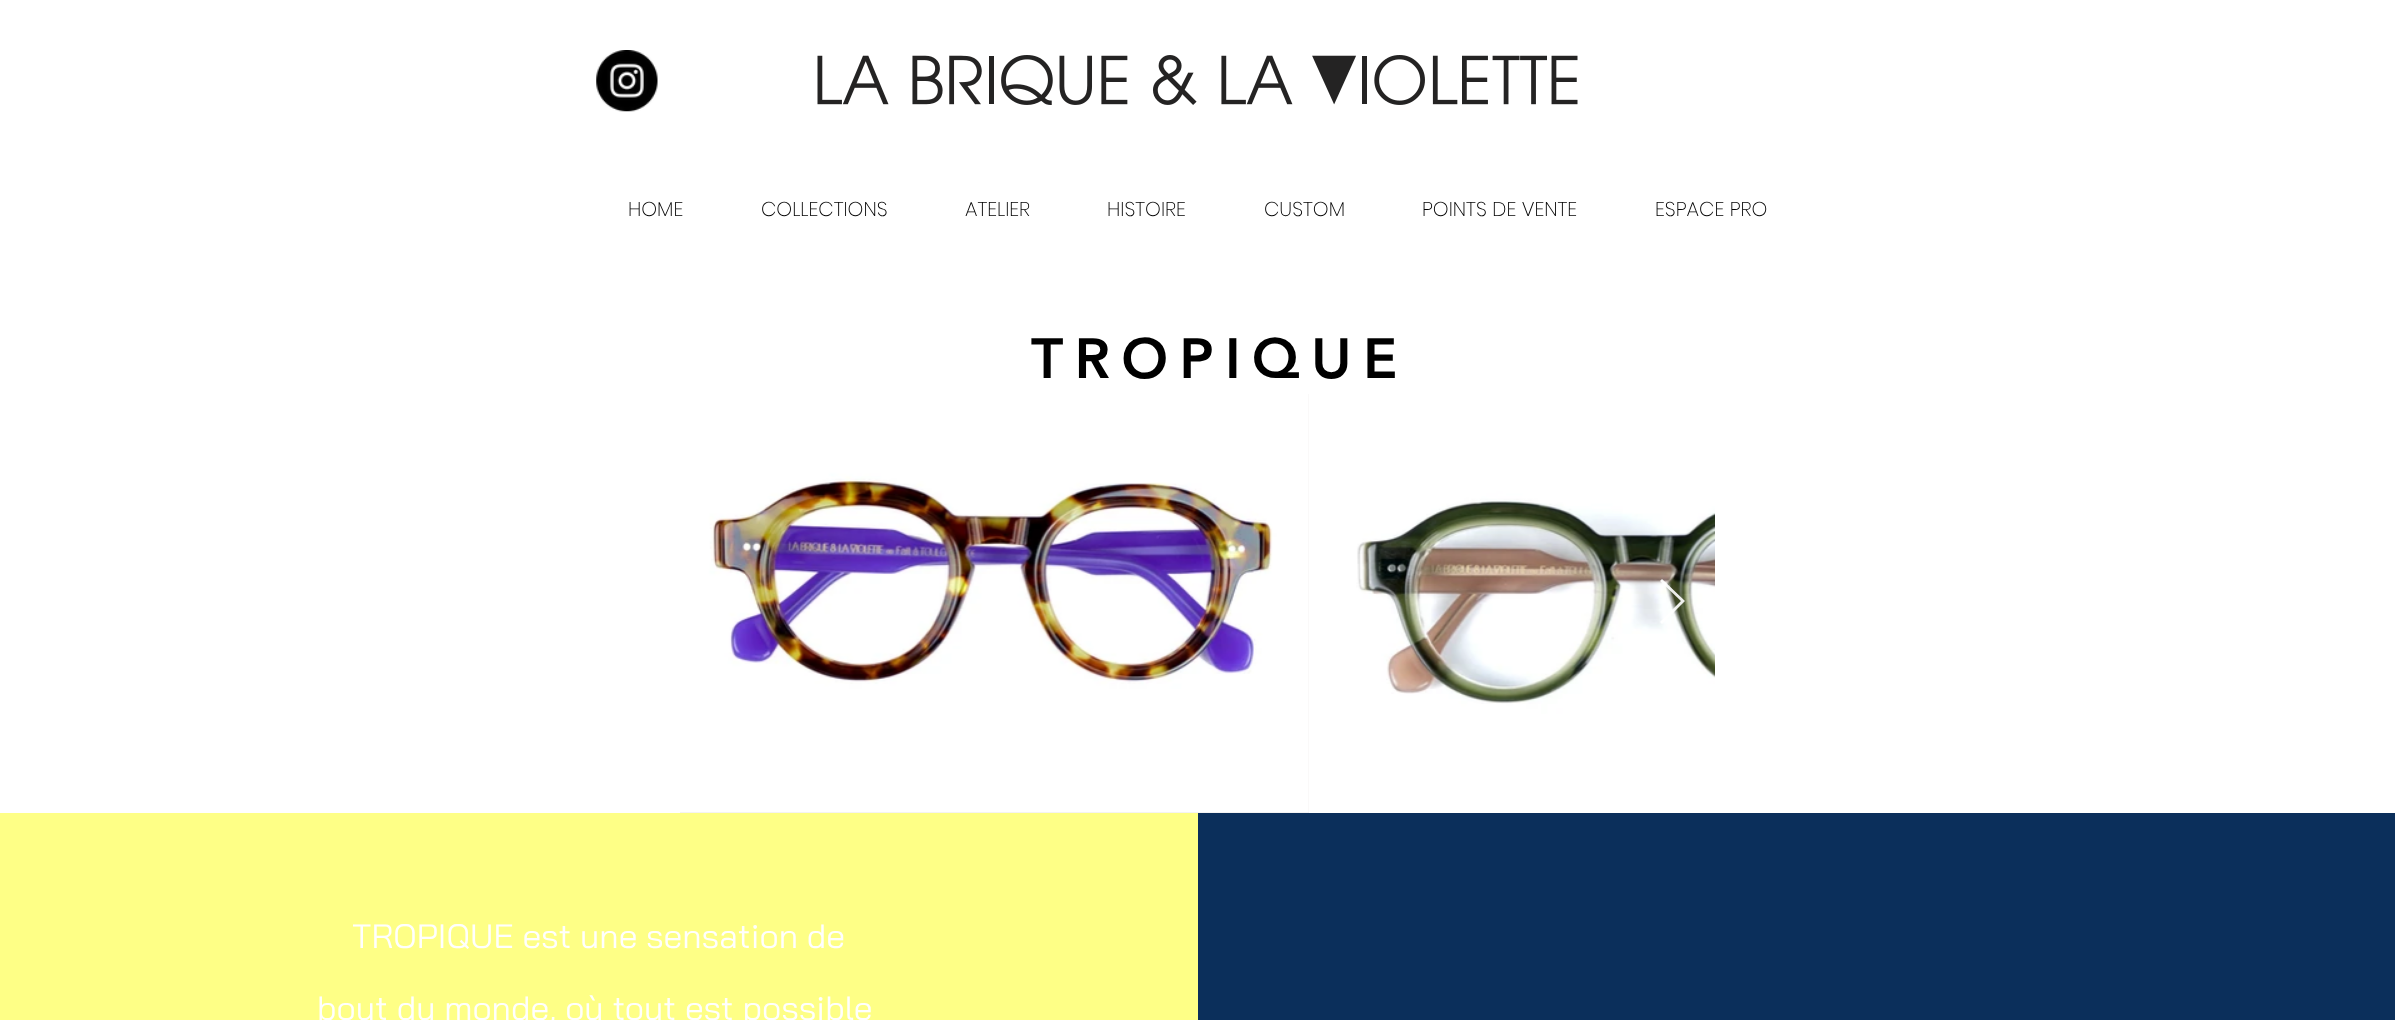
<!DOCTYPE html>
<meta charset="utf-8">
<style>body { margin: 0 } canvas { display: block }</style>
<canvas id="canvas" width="2395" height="1020"></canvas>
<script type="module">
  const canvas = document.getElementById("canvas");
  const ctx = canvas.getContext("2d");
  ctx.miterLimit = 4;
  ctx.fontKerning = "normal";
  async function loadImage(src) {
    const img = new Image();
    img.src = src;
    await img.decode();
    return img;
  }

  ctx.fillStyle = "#ffffff";
  ctx.fillRect(0, 0, 2395, 1020);
  ctx.drawImage(await loadImage("img1.png"), 596, 50, 62, 62);
  ctx.drawImage(await loadImage("img2.png"), 817, 55, 761, 50);
  ctx.font = "200 20px Poppins";
  ctx.fillStyle = "#000000";
  ctx.fillText("HOME", 628, 216);
  ctx.fillText("COLLECTIONS", 761, 216);
  ctx.fillText("ATELIER", 965, 216);
  ctx.fillText("HISTOIRE", 1107, 216);
  ctx.fillText("CUSTOM", 1264, 216);
  ctx.fillText("POINTS DE VENTE", 1422, 216);
  ctx.fillText("ESPACE PRO", 1655, 216);
  ctx.letterSpacing = "11.25px";
  ctx.font = "900 56.25px 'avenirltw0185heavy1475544'";
  ctx.fillText("TROPIQUE", 1031, 378);
  ctx.fillStyle = "#e8e6e6";
  ctx.fillRect(680, 394, 629, 419);
  ctx.drawImage(await loadImage("img3.png"), 680, 394, 629, 419);
  ctx.drawImage(await loadImage("img4.png"), 1321, 394, 394, 419);
  ctx.fillStyle = "rgba(255, 255, 255, 0.9)";
  ctx.beginPath();
  ctx.moveTo(1660, 581);
  ctx.lineTo(1662, 579);
  ctx.lineTo(1685, 601);
  ctx.lineTo(1662, 624);
  ctx.lineTo(1660, 622);
  ctx.lineTo(1681, 601);
  ctx.closePath();
  ctx.fill();
  ctx.fillStyle = "#feff86";
  ctx.fillRect(0, 813, 1198, 207);
  ctx.letterSpacing = "0px";
  ctx.font = "33.75px Bai Jamjuree";
  ctx.fillStyle = "#fffffe";
  ctx.fillText("TROPIQUE est une sensation de", 352, 948);
  ctx.fillText("bout du monde, où tout est possible", 317, 1020);
  ctx.fillStyle = "#0b2f5b";
  ctx.fillRect(1198, 813, 1197, 207);
</script>
